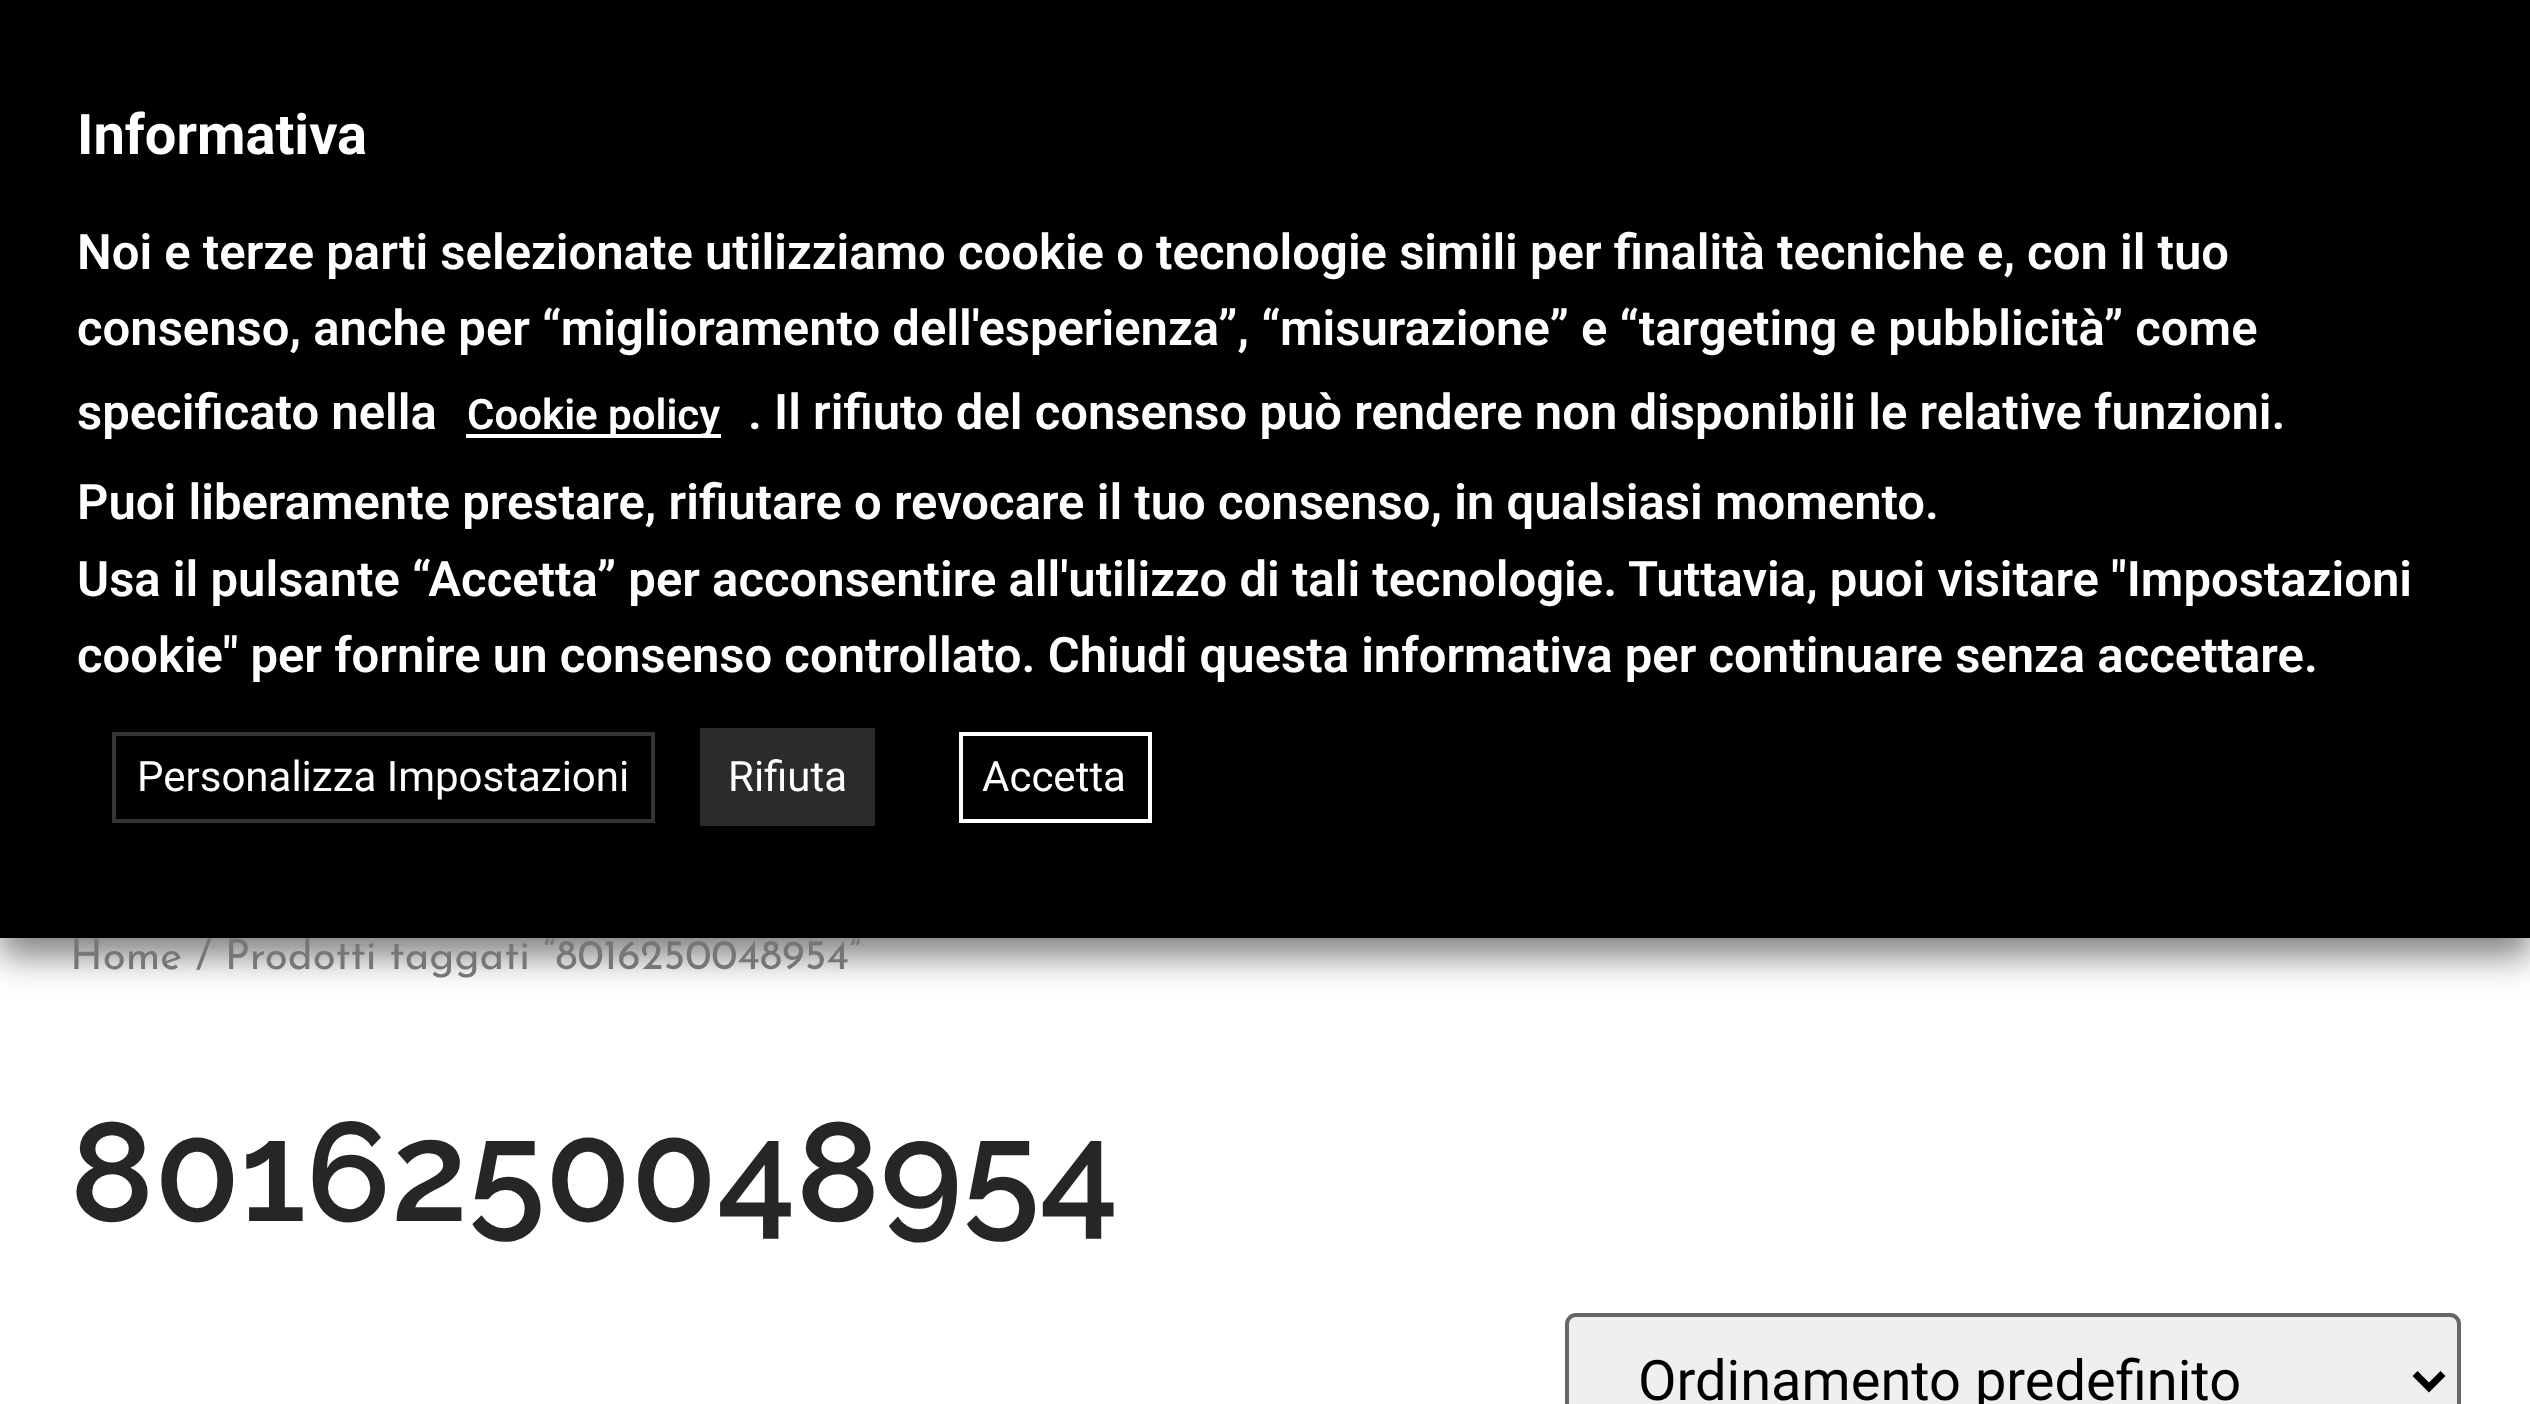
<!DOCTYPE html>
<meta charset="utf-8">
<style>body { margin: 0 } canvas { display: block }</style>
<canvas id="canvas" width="2530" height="1404"></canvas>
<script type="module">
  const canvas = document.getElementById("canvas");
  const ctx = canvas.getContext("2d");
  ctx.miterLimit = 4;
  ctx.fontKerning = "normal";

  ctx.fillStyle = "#ffffff";
  ctx.fillRect(0, 0, 2530, 1404);
  ctx.fillStyle = "rgba(0, 0, 0, 0.5)";
  ctx.filter = "blur(17.5px)";
  ctx.beginPath();
  ctx.rect(0, 18, 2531, 938);
  ctx.fill();
  ctx.filter = "none";
  ctx.font = "42px Josefin Sans";
  ctx.fillStyle = "#767676";
  ctx.fillText("Home / Prodotti taggati “8016250048954”", 70, 969);
  ctx.fillStyle = "#000000";
  ctx.fillRect(0, 0, 2530, 938);
  ctx.font = "bold 56px Roboto";
  ctx.fillStyle = "#ffffff";
  ctx.fillText("Informativa", 77, 154);
  ctx.font = "600 49px Roboto";
  ctx.fillText("Noi e terze parti selezionate utilizziamo cookie o tecnologie simili per finalità tecniche e, con il tuo", 77, 269);
  ctx.fillText("consenso, anche per “miglioramento dell'esperienza”, “misurazione” e “targeting e pubblicità” come", 77, 345);
  ctx.fillText("specificato nella", 77, 429);
  ctx.fillRect(466, 434, 255, 4);
  ctx.font = "600 42px Roboto";
  ctx.fillText("Cookie policy", 467, 429);
  ctx.font = "600 49px Roboto";
  ctx.fillText(". Il rifiuto del consenso può rendere non disponibili le relative funzioni.", 748, 429);
  ctx.fillText("Puoi liberamente prestare, rifiutare o revocare il tuo consenso, in qualsiasi momento.", 77, 519);
  ctx.fillText("Usa il pulsante “Accetta” per acconsentire all'utilizzo di tali tecnologie. Tuttavia, puoi visitare \"Impostazioni", 77, 596);
  ctx.fillText("cookie\" per fornire un consenso controllato. Chiudi questa informativa per continuare senza accettare.", 77, 672);
  ctx.strokeStyle = "#343434";
  ctx.lineWidth = 4;
  ctx.strokeRect(114, 734, 539, 87);
  ctx.font = "42px Roboto";
  ctx.fillText("Personalizza Impostazioni", 137, 791);
  ctx.fillStyle = "#2c2b2b";
  ctx.fillRect(700, 728, 175, 98);
  ctx.fillStyle = "#ffffff";
  ctx.fillText("Rifiuta", 728, 791);
  ctx.strokeStyle = "#ffffff";
  ctx.strokeRect(961, 734, 189, 87);
  ctx.fillText("Accetta", 982, 791);
  ctx.font = "600 140px Raleway";
  ctx.fillStyle = "#262626";
  ctx.fillText("8016250048954", 70, 1221);
  ctx.fillStyle = "#efefef";
  ctx.beginPath();
  ctx.roundRect(1567, 1315, 892, 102, 9);
  ctx.fill();
  ctx.strokeStyle = "#666666";
  ctx.stroke();
  ctx.beginPath();
  ctx.moveTo(2415, 1373.5);
  ctx.lineTo(2429, 1387.5);
  ctx.lineTo(2443, 1373.5);
  ctx.strokeStyle = "#000000";
  ctx.lineWidth = 7;
  ctx.stroke();
  ctx.font = "56px Roboto";
  ctx.fillStyle = "#000000";
  ctx.fillText("Ordinamento predefinito", 1638, 1400);
</script>
